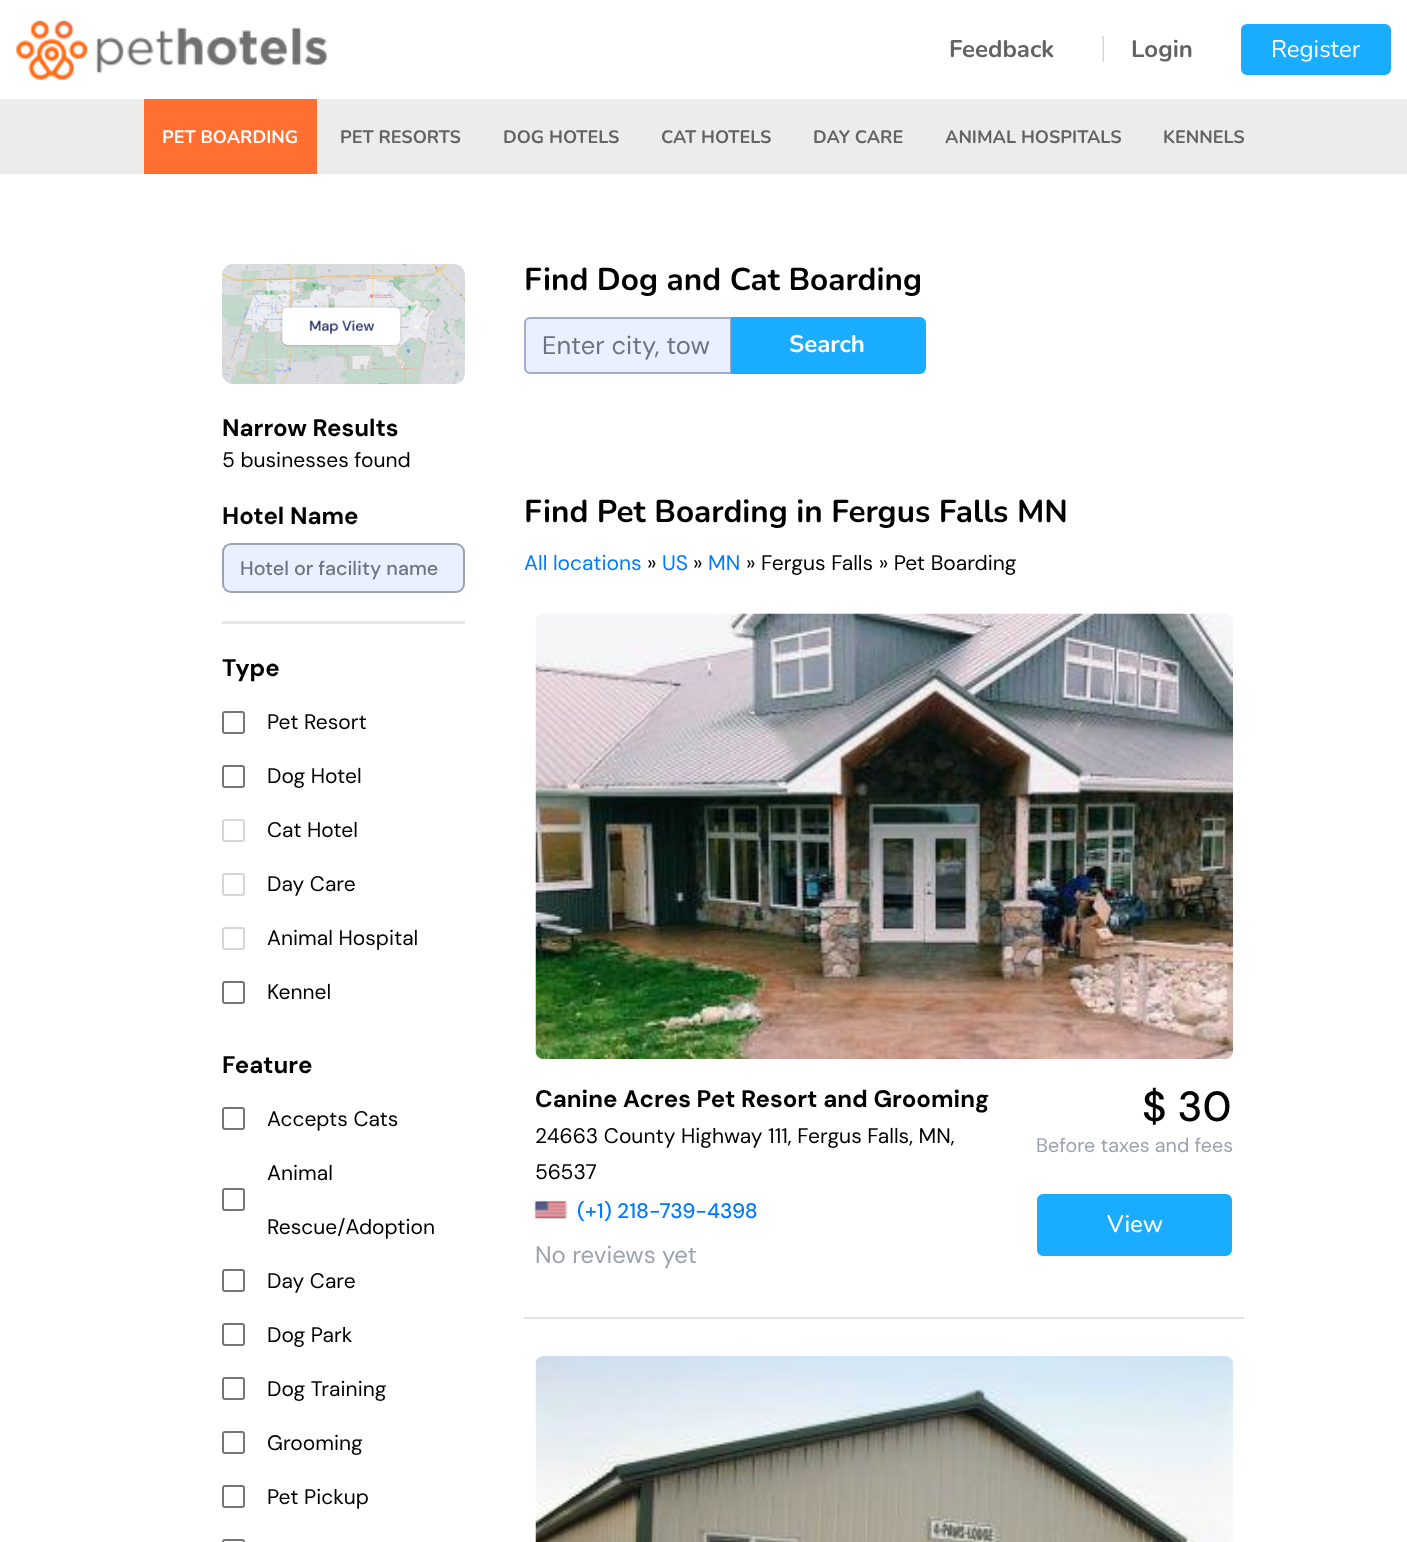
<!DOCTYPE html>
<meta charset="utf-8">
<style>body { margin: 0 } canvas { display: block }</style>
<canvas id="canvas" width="1407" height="1542"></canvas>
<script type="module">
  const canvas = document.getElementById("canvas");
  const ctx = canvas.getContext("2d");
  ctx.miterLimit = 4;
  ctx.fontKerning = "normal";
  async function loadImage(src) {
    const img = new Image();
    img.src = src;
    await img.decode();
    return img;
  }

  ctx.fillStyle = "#ffffff";
  ctx.fillRect(0, 0, 1407, 1542);
  ctx.drawImage(await loadImage("img1.png"), 16, 21, 311, 59);
  ctx.font = "bold 24px Nunito";
  ctx.fillStyle = "#636363";
  ctx.fillText("Feedback", 949, 57);
  ctx.drawImage(await loadImage("img2.png"), 1102, 36, 2, 26);
  ctx.fillText("Login", 1131, 57);
  ctx.fillStyle = "#19acff";
  ctx.beginPath();
  ctx.roundRect(1242.5, 25.5, 147, 48, 4.5);
  ctx.fill();
  ctx.strokeStyle = "#19acff";
  ctx.lineWidth = 3;
  ctx.stroke();
  ctx.font = "24px Nunito";
  ctx.fillStyle = "#ffffff";
  ctx.fillText("Register", 1271, 57);
  ctx.fillStyle = "#ececec";
  ctx.fillRect(0, 99, 1407, 75);
  ctx.fillStyle = "#ff6f32";
  ctx.fillRect(144, 99, 173, 75);
  ctx.font = "bold 18px Nunito";
  ctx.fillStyle = "#ffffff";
  ctx.fillText("PET BOARDING", 162, 143);
  ctx.fillStyle = "#636363";
  ctx.fillText("PET RESORTS", 340, 143);
  ctx.fillText("DOG HOTELS", 503, 143);
  ctx.fillText("CAT HOTELS", 661, 143);
  ctx.fillText("DAY CARE", 813, 143);
  ctx.fillText("ANIMAL HOSPITALS", 945, 143);
  ctx.fillText("KENNELS", 1163, 143);
  ctx.drawImage(await loadImage("img3.png"), 222, 264, 243, 120);
  ctx.font = "bold 24px DM Sans";
  ctx.fillStyle = "#000000";
  ctx.fillText("Narrow Results", 222, 436);
  ctx.font = "21px DM Sans";
  ctx.fillText("5 businesses found", 222, 467);
  ctx.font = "bold 24px DM Sans";
  ctx.fillText("Hotel Name", 222, 524);
  ctx.fillStyle = "#eaf0ff";
  ctx.beginPath();
  ctx.roundRect(223, 544, 241, 48, 8);
  ctx.fill();
  ctx.strokeStyle = "#9ca3af";
  ctx.lineWidth = 2;
  ctx.stroke();
  ctx.font = "500 19.75px DM Sans";
  ctx.fillStyle = "#6c757d";
  ctx.fillText("Hotel or facility name", 240, 575);
  ctx.fillStyle = "#e6e6e6";
  ctx.fillRect(222, 621, 243, 3);
  ctx.font = "bold 24px DM Sans";
  ctx.fillStyle = "#000000";
  ctx.fillText("Type", 222, 676);
  ctx.beginPath();
  ctx.roundRect(223, 712, 21, 21, 2);
  ctx.strokeStyle = "#767676";
  ctx.stroke();
  ctx.font = "21px DM Sans";
  ctx.fillText("Pet Resort", 267, 729);
  ctx.beginPath();
  ctx.roundRect(223, 766, 21, 21, 2);
  ctx.stroke();
  ctx.fillText("Dog Hotel", 267, 783);
  ctx.beginPath();
  ctx.roundRect(223, 820, 21, 21, 2);
  ctx.strokeStyle = "#d6d6d6";
  ctx.stroke();
  ctx.fillText("Cat Hotel", 267, 837);
  ctx.beginPath();
  ctx.roundRect(223, 874, 21, 21, 2);
  ctx.stroke();
  ctx.fillText("Day Care", 267, 891);
  ctx.beginPath();
  ctx.roundRect(223, 928, 21, 21, 2);
  ctx.stroke();
  ctx.fillText("Animal Hospital", 267, 945);
  ctx.beginPath();
  ctx.roundRect(223, 982, 21, 21, 2);
  ctx.strokeStyle = "#767676";
  ctx.stroke();
  ctx.fillText("Kennel", 267, 999);
  ctx.font = "bold 24px DM Sans";
  ctx.fillText("Feature", 222, 1073);
  ctx.beginPath();
  ctx.roundRect(223, 1108, 21, 21, 2);
  ctx.stroke();
  ctx.font = "21px DM Sans";
  ctx.fillText("Accepts Cats", 267, 1126);
  ctx.beginPath();
  ctx.roundRect(223, 1189, 21, 21, 2);
  ctx.stroke();
  ctx.fillText("Animal", 267, 1180);
  ctx.fillText("Rescue/Adoption", 267, 1234);
  ctx.beginPath();
  ctx.roundRect(223, 1270, 21, 21, 2);
  ctx.stroke();
  ctx.fillText("Day Care", 267, 1288);
  ctx.beginPath();
  ctx.roundRect(223, 1324, 21, 21, 2);
  ctx.stroke();
  ctx.fillText("Dog Park", 267, 1342);
  ctx.beginPath();
  ctx.roundRect(223, 1378, 21, 21, 2);
  ctx.stroke();
  ctx.fillText("Dog Training", 267, 1396);
  ctx.beginPath();
  ctx.roundRect(223, 1432, 21, 21, 2);
  ctx.stroke();
  ctx.fillText("Grooming", 267, 1450);
  ctx.beginPath();
  ctx.roundRect(223, 1486, 21, 21, 2);
  ctx.stroke();
  ctx.fillText("Pet Pickup", 267, 1504);
  ctx.beginPath();
  ctx.roundRect(223, 1540, 21, 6, 2);
  ctx.stroke();
  ctx.font = "bold 31.5px Nunito";
  ctx.fillText("Find Dog and Cat Boarding", 524, 290);
  ctx.fillStyle = "#eaf0ff";
  ctx.beginPath();
  ctx.roundRect(525, 318, 206, 55, [5, 0, 0, 5]);
  ctx.fill();
  ctx.strokeStyle = "#a0adcf";
  ctx.stroke();
  ctx.font = "25.5px DM Sans";
  ctx.fillStyle = "#6c757d";
  ctx.fillText("Enter city, tow", 542, 354);
  ctx.fillStyle = "#19acff";
  ctx.beginPath();
  ctx.roundRect(732.5, 318.5, 192, 54, [0, 4.5, 4.5, 0]);
  ctx.fill();
  ctx.strokeStyle = "#19acff";
  ctx.lineWidth = 3;
  ctx.stroke();
  ctx.font = "bold 24px Nunito";
  ctx.fillStyle = "#ffffff";
  ctx.fillText("Search", 789, 352);
  ctx.font = "bold 31.5px Nunito";
  ctx.fillStyle = "#000000";
  ctx.fillText("Find Pet Boarding in Fergus Falls MN", 524, 522);
  ctx.font = "21px DM Sans";
  ctx.fillStyle = "#007bff";
  ctx.fillText("All locations", 524, 570);
  ctx.fillStyle = "#000000";
  ctx.fillText("»", 647, 570);
  ctx.fillStyle = "#007bff";
  ctx.fillText("US", 662, 570);
  ctx.fillStyle = "#000000";
  ctx.fillText("»", 693, 570);
  ctx.fillStyle = "#007bff";
  ctx.fillText("MN", 708, 570);
  ctx.fillStyle = "#000000";
  ctx.fillText("» Fergus Falls » Pet Boarding", 746, 570);
  ctx.drawImage(await loadImage("img4.png"), 535, 613, 698, 446);
  ctx.font = "bold 24px DM Sans";
  ctx.fillText("Canine Acres Pet Resort and Grooming", 535, 1107);
  ctx.font = "21px DM Sans";
  ctx.fillText("24663 County Highway 111, Fergus Falls, MN,", 535, 1143);
  ctx.fillText("56537", 535, 1179);
  ctx.fillStyle = "#888888";
  ctx.filter = "blur(1px)";
  ctx.beginPath();
  ctx.rect(536, 1202, 30, 16);
  ctx.fill();
  ctx.filter = "none";
  ctx.fillStyle = "#dbdbdb";
  ctx.fillRect(565, 1202, 1, 16);
  ctx.drawImage(await loadImage("img5.png"), 535, 1201, 31, 17);
  ctx.font = "500 21px DM Sans";
  ctx.fillStyle = "#007bff";
  ctx.fillText("(+1) 218-739-4398", 577, 1218);
  ctx.font = "24px DM Sans";
  ctx.fillStyle = "#9ca3af";
  ctx.fillText("No reviews yet", 535, 1263);
  ctx.font = "500 42px DM Sans";
  ctx.fillStyle = "#000000";
  ctx.fillText("$ 30", 1142, 1121);
  ctx.font = "19.75px DM Sans";
  ctx.fillStyle = "#9ca3af";
  ctx.fillText("Before taxes and fees", 1036, 1152);
  ctx.fillStyle = "#19acff";
  ctx.beginPath();
  ctx.roundRect(1038.5, 1195.5, 192, 59, 4.5);
  ctx.fill();
  ctx.stroke();
  ctx.font = "500 24px Nunito";
  ctx.fillStyle = "#ffffff";
  ctx.fillText("View", 1107, 1232);
  ctx.fillStyle = "#e2e2e2";
  ctx.fillRect(524, 1317, 720, 2);
  ctx.drawImage(await loadImage("img6.png"), 535, 1356, 698, 186);
</script>
